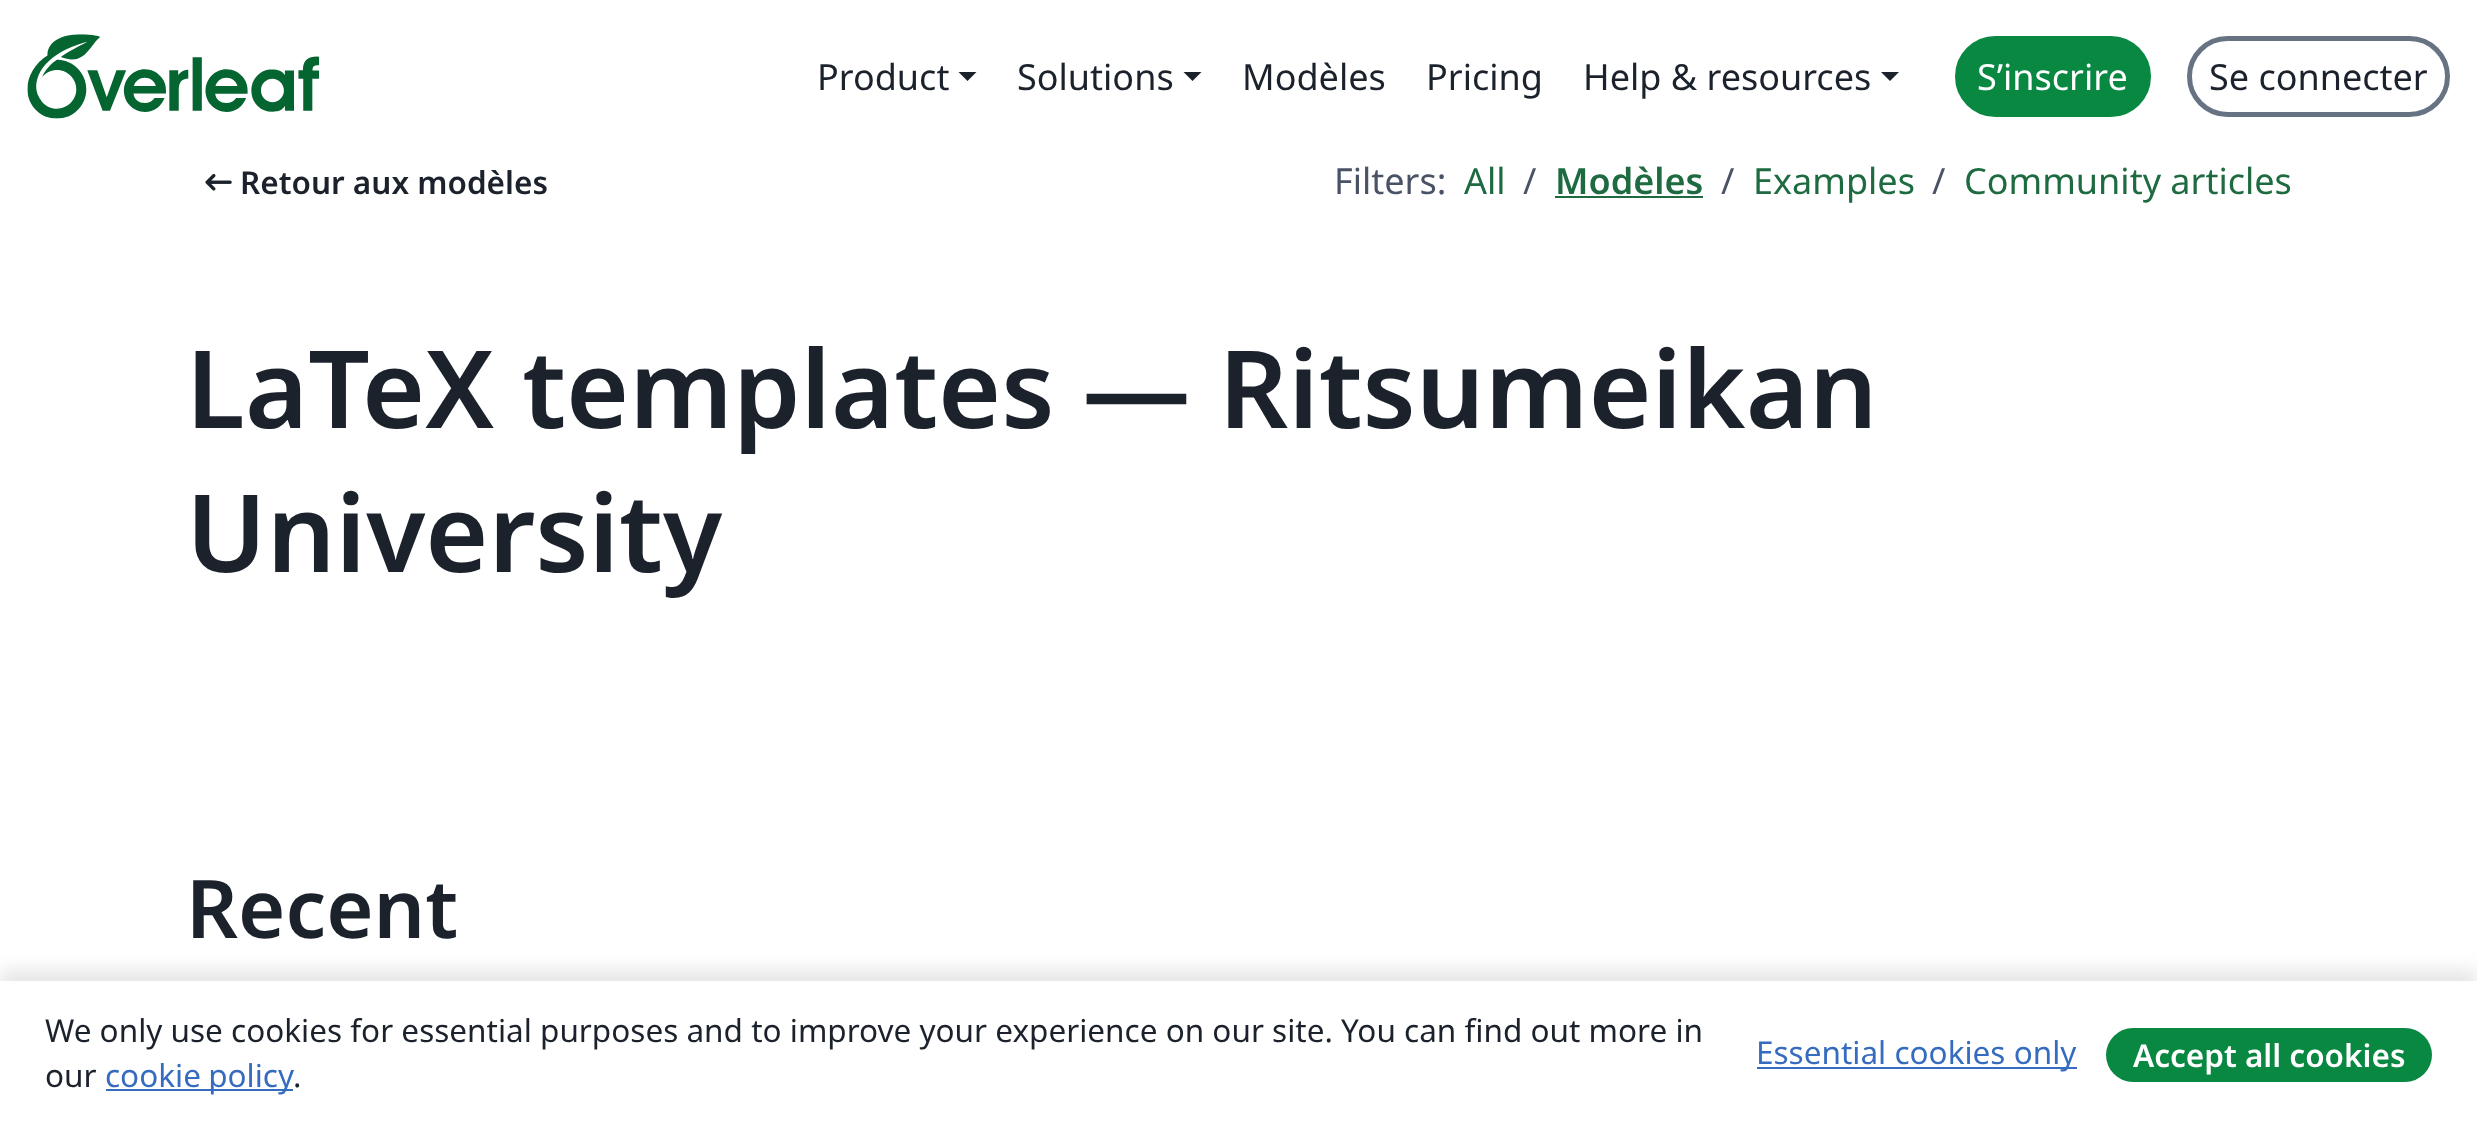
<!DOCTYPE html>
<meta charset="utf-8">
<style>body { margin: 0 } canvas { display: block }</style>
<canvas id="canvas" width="2477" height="1124"></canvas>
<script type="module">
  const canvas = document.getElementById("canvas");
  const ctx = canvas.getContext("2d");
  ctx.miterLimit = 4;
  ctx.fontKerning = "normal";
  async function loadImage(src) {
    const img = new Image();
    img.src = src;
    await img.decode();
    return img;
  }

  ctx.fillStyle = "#ffffff";
  ctx.fillRect(0, 0, 2477, 1124);
  ctx.drawImage(await loadImage("img1.png"), 27, 34, 293, 85);
  ctx.font = "36px Noto Sans";
  ctx.fillStyle = "#1b222c";
  ctx.fillText("Product", 817, 90);
  ctx.beginPath();
  ctx.moveTo(958.5, 72);
  ctx.lineTo(976.5, 72);
  ctx.lineTo(967.5, 81);
  ctx.closePath();
  ctx.fill();
  ctx.fillText("Solutions", 1017, 90);
  ctx.beginPath();
  ctx.moveTo(1183.5, 72);
  ctx.lineTo(1201.5, 72);
  ctx.lineTo(1192.5, 81);
  ctx.closePath();
  ctx.fill();
  ctx.fillText("Modèles", 1242, 90);
  ctx.fillText("Pricing", 1426, 90);
  ctx.fillText("Help & resources", 1583, 90);
  ctx.beginPath();
  ctx.moveTo(1881, 72);
  ctx.lineTo(1899, 72);
  ctx.lineTo(1890, 81);
  ctx.closePath();
  ctx.fill();
  ctx.fillStyle = "#098842";
  ctx.beginPath();
  ctx.roundRect(1957.5, 38.5, 191, 76, 38);
  ctx.fill();
  ctx.strokeStyle = "#098842";
  ctx.lineWidth = 5;
  ctx.stroke();
  ctx.fillStyle = "#ffffff";
  ctx.fillText("S’inscrire", 1977, 90);
  ctx.beginPath();
  ctx.roundRect(2189.5, 38.5, 258, 76, 38);
  ctx.strokeStyle = "#677283";
  ctx.stroke();
  ctx.fillStyle = "#1b222c";
  ctx.fillText("Se connecter", 2209, 90);
  ctx.drawImage(await loadImage("img2.png"), 205, 173, 27, 18);
  ctx.font = "600 31.5px Noto Sans";
  ctx.fillText("Retour aux modèles", 240, 194);
  ctx.font = "36px Noto Sans";
  ctx.fillStyle = "#495365";
  ctx.fillText("Filters:", 1334, 194);
  ctx.fillStyle = "#1e6b41";
  ctx.fillText("All", 1464, 194);
  ctx.fillStyle = "#495365";
  ctx.fillText("/", 1523, 194);
  ctx.font = "600 36px Noto Sans";
  ctx.fillStyle = "#1e6b41";
  ctx.fillText("Modèles", 1555, 194);
  ctx.fillRect(1555, 196, 148, 2);
  ctx.font = "36px Noto Sans";
  ctx.fillStyle = "#495365";
  ctx.fillText("/", 1721, 194);
  ctx.fillStyle = "#1e6b41";
  ctx.fillText("Examples", 1753, 194);
  ctx.fillStyle = "#495365";
  ctx.fillText("/", 1932, 194);
  ctx.fillStyle = "#1e6b41";
  ctx.fillText("Community articles", 1964, 194);
  ctx.font = "600 108px Noto Sans";
  ctx.fillStyle = "#1b222c";
  ctx.fillText("LaTeX templates — Ritsumeikan", 186, 428);
  ctx.fillText("University", 186, 572);
  ctx.font = "600 81px Noto Sans";
  ctx.fillText("Recent", 186, 938);
  ctx.fillStyle = "rgba(0, 0, 0, 0.1)";
  ctx.filter = "blur(9px)";
  ctx.beginPath();
  ctx.rect(0, 970, 2477, 144);
  ctx.fill();
  ctx.filter = "none";
  ctx.fillStyle = "#ffffff";
  ctx.fillRect(0, 981, 2477, 143);
  ctx.font = "31.5px Noto Sans";
  ctx.fillStyle = "#1b222c";
  ctx.fillText("We only use cookies for essential purposes and to improve your experience on our site. You can find out more in", 45, 1042);
  ctx.fillText("our", 45, 1087);
  ctx.fillStyle = "#366cbf";
  ctx.fillRect(106, 1089, 187, 2);
  ctx.wordSpacing = "-1px";
  ctx.fillText("cookie policy", 105, 1087);
  ctx.wordSpacing = "0px";
  ctx.fillStyle = "#1b222c";
  ctx.fillText(".", 293, 1087);
  ctx.fillStyle = "#366cbf";
  ctx.fillRect(1757, 1067, 320, 2);
  ctx.fillText("Essential cookies only", 1756, 1064);
  ctx.fillStyle = "#098842";
  ctx.beginPath();
  ctx.roundRect(2106, 1028, 326, 54, 27);
  ctx.fill();
  ctx.font = "600 31.5px Noto Sans";
  ctx.fillStyle = "#ffffff";
  ctx.fillText("Accept all cookies", 2133, 1067);
</script>
